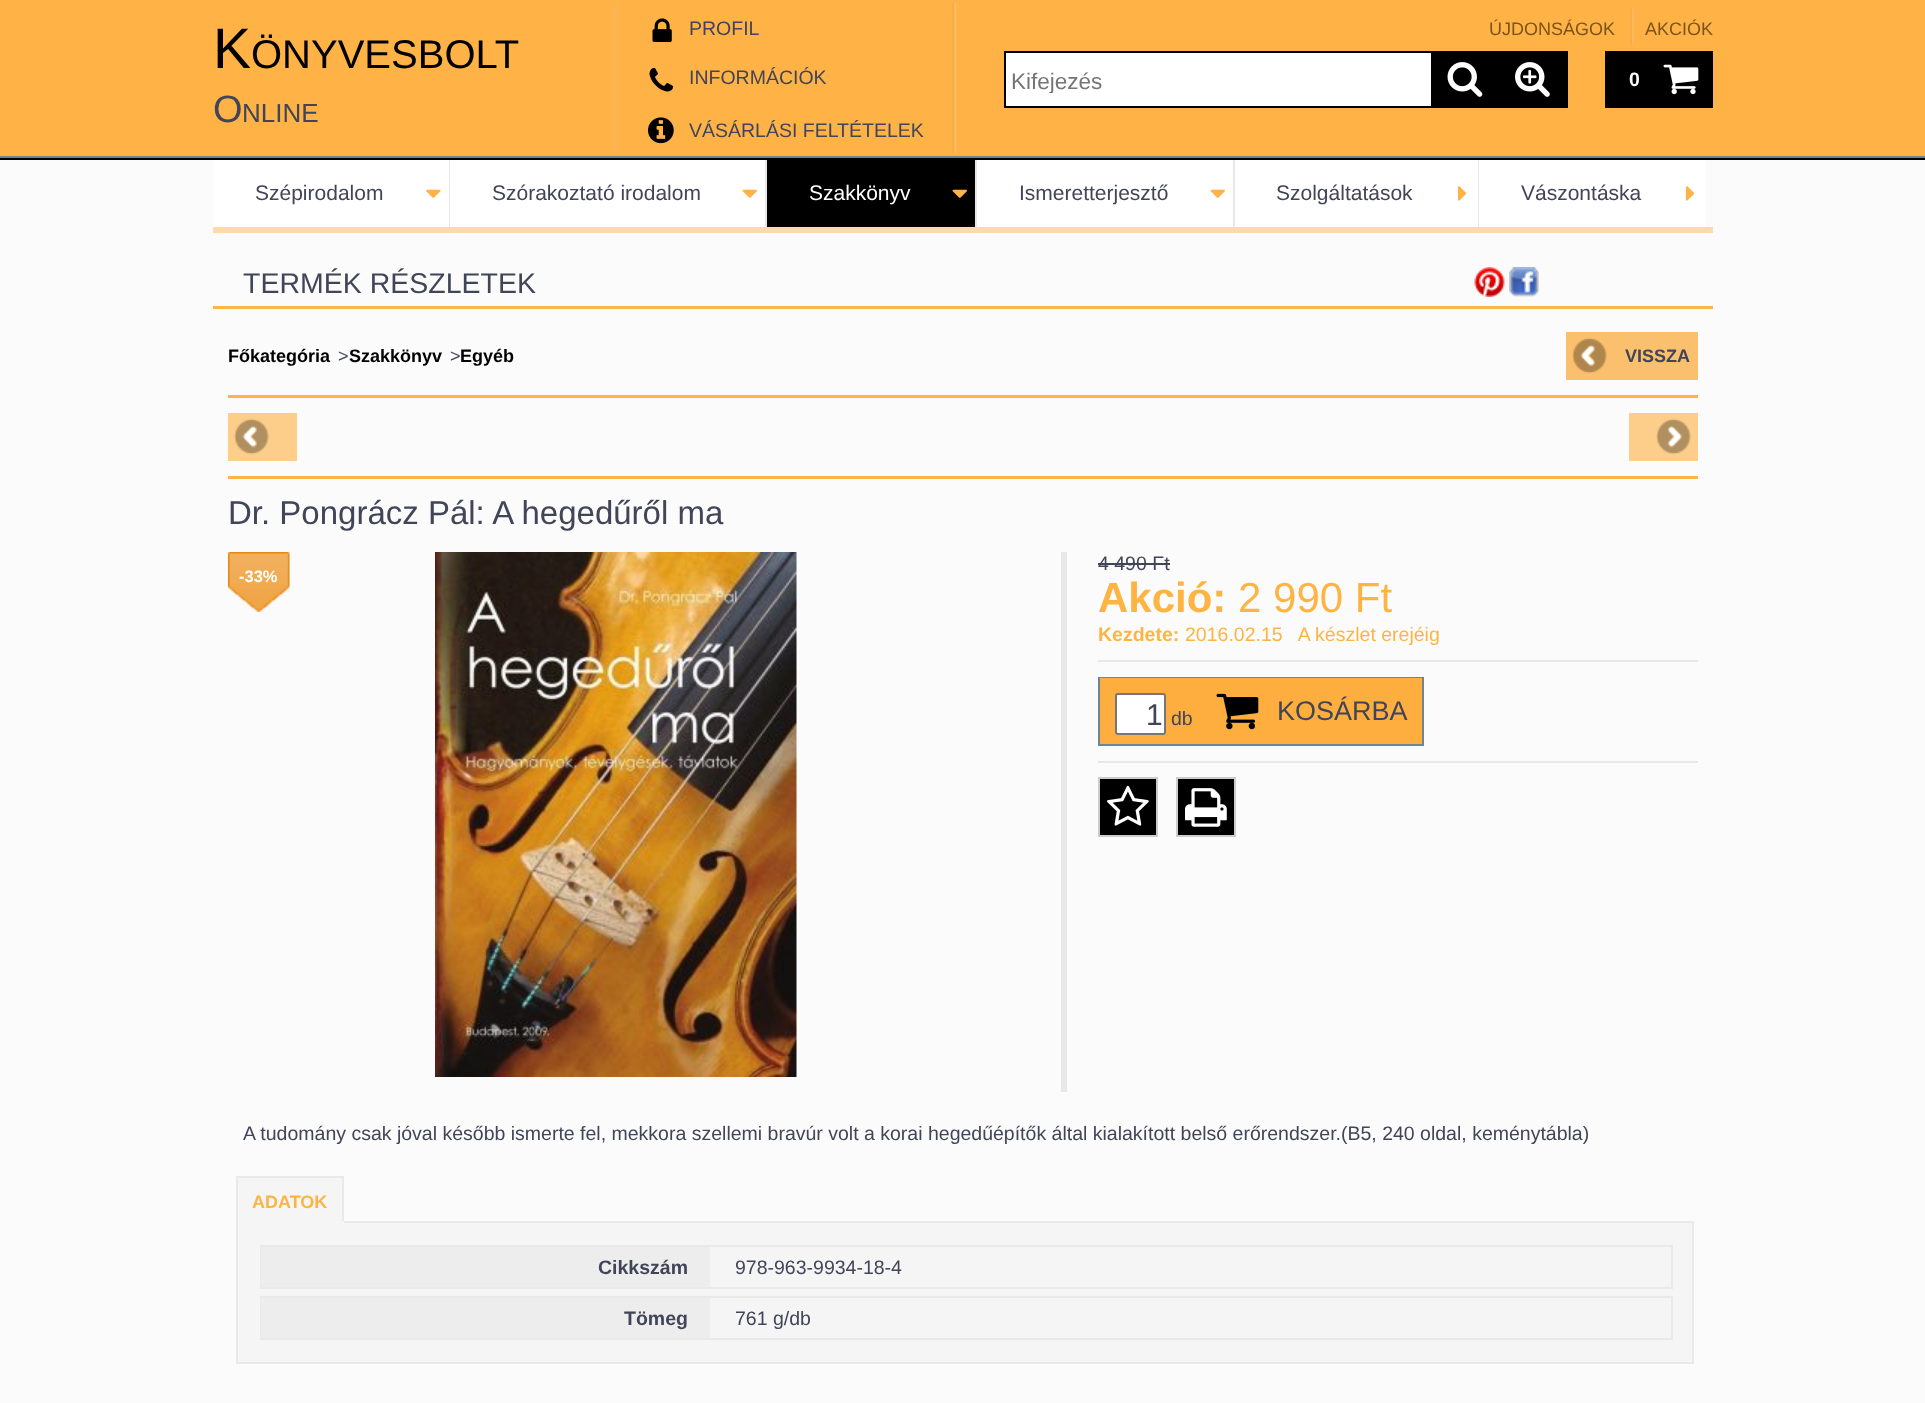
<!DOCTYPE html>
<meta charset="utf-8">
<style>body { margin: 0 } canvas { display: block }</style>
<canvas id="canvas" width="1925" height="1403"></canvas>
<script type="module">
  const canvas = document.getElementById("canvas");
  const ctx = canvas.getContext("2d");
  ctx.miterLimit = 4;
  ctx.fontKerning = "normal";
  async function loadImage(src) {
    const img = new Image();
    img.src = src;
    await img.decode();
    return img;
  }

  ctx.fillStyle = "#fbfbfb";
  ctx.fillRect(0, 0, 1925, 1403);
  ctx.fillStyle = "#ffb246";
  ctx.fillRect(0, 0, 1925, 156);
  ctx.fillStyle = "#e8e8e8";
  ctx.fillRect(449, 159, 1, 68);
  ctx.fillRect(765, 159, 2, 68);
  ctx.fillRect(975, 159, 2, 68);
  ctx.fillRect(1233, 159, 2, 68);
  ctx.fillRect(1478, 159, 1, 68);
  ctx.fillStyle = "#000000";
  ctx.fillRect(0, 158, 1925, 2);
  ctx.fillStyle = "#6d8696";
  ctx.fillRect(0, 156, 1925, 2);
  ctx.fillStyle = "#f9b456";
  ctx.fillRect(615, 3, 3, 150);
  ctx.font = "57px Liberation Sans";
  ctx.fillStyle = "#000000";
  ctx.fillText("K", 213, 68);
  ctx.font = "40px Liberation Sans";
  ctx.fillText("ÖNYVESBOLT", 251, 68);
  ctx.font = "38px Liberation Sans";
  ctx.fillStyle = "#414558";
  ctx.fillText("O", 213, 122);
  ctx.font = "26px Liberation Sans";
  ctx.fillText("NLINE", 242, 122);
  ctx.drawImage(await loadImage("img1.png"), 952, 3, 4, 150);
  ctx.drawImage(await loadImage("img2.png"), 652, 18, 20, 24);
  ctx.font = "19.5px Liberation Sans";
  ctx.fillText("PROFIL", 689, 35);
  ctx.drawImage(await loadImage("img3.png"), 649, 67, 25, 25);
  ctx.fillText("INFORMÁCIÓK", 689, 84);
  ctx.drawImage(await loadImage("img4.png"), 648, 117, 26, 27);
  ctx.fillText("VÁSÁRLÁSI FELTÉTELEK", 689, 137);
  ctx.drawImage(await loadImage("img5.png"), 1630, 7, 4, 38);
  ctx.font = "18px Liberation Sans";
  ctx.fillStyle = "#7c541d";
  ctx.fillText("ÚJDONSÁGOK", 1489, 35);
  ctx.fillText("AKCIÓK", 1645, 35);
  ctx.fillStyle = "#ffffff";
  ctx.fillRect(1006, 53, 425, 53);
  ctx.strokeStyle = "#000000";
  ctx.lineWidth = 2;
  ctx.strokeRect(1005, 52, 562, 55);
  ctx.save();
  ctx.beginPath();
  ctx.rect(1011, 68, 413, 25);
  ctx.clip();
  ctx.font = "22.5px Liberation Sans";
  ctx.fillStyle = "#757575";
  ctx.fillText("Kifejezés", 1011, 89);
  ctx.restore();
  ctx.fillStyle = "#000000";
  ctx.fillRect(1431, 53, 135, 53);
  ctx.drawImage(await loadImage("img6.png"), 1447, 62, 36, 35);
  ctx.drawImage(await loadImage("img7.png"), 1515, 62, 35, 35);
  ctx.fillRect(1605, 51, 108, 57);
  ctx.font = "bold 19.5px Liberation Sans";
  ctx.fillStyle = "#ffffff";
  ctx.fillText("0", 1629, 86);
  ctx.drawImage(await loadImage("img8.png"), 1663, 64, 36, 31);
  ctx.fillRect(213, 160, 236, 67);
  ctx.font = "21px Liberation Sans";
  ctx.fillStyle = "#414558";
  ctx.fillText("Szépirodalom", 255, 200);
  ctx.drawImage(await loadImage("img9.png"), 426, 189, 15, 9);
  ctx.fillStyle = "#ffffff";
  ctx.fillRect(450, 160, 315, 67);
  ctx.fillStyle = "#414558";
  ctx.fillText("Szórakoztató irodalom", 492, 200);
  ctx.drawImage(await loadImage("img10.png"), 742, 189, 15, 9);
  ctx.fillStyle = "#000000";
  ctx.fillRect(767, 160, 208, 67);
  ctx.fillStyle = "#ffffff";
  ctx.fillText("Szakkönyv", 809, 200);
  ctx.drawImage(await loadImage("img11.png"), 952, 189, 15, 9);
  ctx.fillRect(977, 160, 256, 67);
  ctx.fillStyle = "#414558";
  ctx.fillText("Ismeretterjesztő", 1019, 200);
  ctx.drawImage(await loadImage("img10.png"), 1210, 189, 15, 9);
  ctx.fillStyle = "#ffffff";
  ctx.fillRect(1235, 160, 243, 67);
  ctx.fillStyle = "#414558";
  ctx.fillText("Szolgáltatások", 1276, 200);
  ctx.drawImage(await loadImage("img12.png"), 1458, 186, 9, 15);
  ctx.fillStyle = "#ffffff";
  ctx.fillRect(1479, 160, 227, 67);
  ctx.fillStyle = "#414558";
  ctx.fillText("Vászontáska", 1521, 200);
  ctx.drawImage(await loadImage("img12.png"), 1686, 186, 9, 15);
  ctx.fillStyle = "#ffdaa9";
  ctx.fillRect(213, 227, 1500, 6);
  ctx.font = "28.5px Liberation Sans";
  ctx.fillStyle = "#414558";
  ctx.fillText("TERMÉK RÉSZLETEK", 243, 293);
  ctx.fillStyle = "#fcb446";
  ctx.fillRect(213, 306, 1500, 3);
  ctx.font = "bold 18px Liberation Sans";
  ctx.fillStyle = "#000000";
  ctx.fillText("Főkategória", 228, 362);
  ctx.font = "18px Liberation Sans";
  ctx.fillStyle = "#414558";
  ctx.fillText(">", 338, 362);
  ctx.font = "bold 18px Liberation Sans";
  ctx.fillStyle = "#000000";
  ctx.fillText("Szakkönyv", 349, 362);
  ctx.font = "18px Liberation Sans";
  ctx.fillStyle = "#414558";
  ctx.fillText(">", 450, 362);
  ctx.font = "bold 18px Liberation Sans";
  ctx.fillStyle = "#000000";
  ctx.fillText("Egyéb", 460, 362);
  ctx.fillStyle = "#fbc06e";
  ctx.fillRect(1566, 332, 132, 48);
  ctx.drawImage(await loadImage("img13.png"), 1572, 337, 35, 37);
  ctx.fillStyle = "#414558";
  ctx.fillText("VISSZA", 1625, 362);
  ctx.fillStyle = "#fcb446";
  ctx.fillRect(228, 395, 1470, 3);
  ctx.fillStyle = "#fdcd8a";
  ctx.fillRect(228, 413, 69, 48);
  ctx.drawImage(await loadImage("img14.png"), 234, 418, 35, 37);
  ctx.fillRect(1629, 413, 69, 48);
  ctx.drawImage(await loadImage("img15.png"), 1656, 418, 35, 37);
  ctx.fillStyle = "#fcb446";
  ctx.fillRect(228, 476, 1470, 3);
  ctx.drawImage(await loadImage("img16.png"), 1474, 267, 31, 30);
  ctx.drawImage(await loadImage("img17.png"), 1509, 267, 30, 30);
  ctx.font = "33px Liberation Sans";
  ctx.fillStyle = "#414558";
  ctx.fillText("Dr. Pongrácz Pál: A hegedűről ma", 228, 524);
  ctx.drawImage(await loadImage("img18.png"), 228, 552, 62, 60);
  ctx.font = "bold 16.5px Liberation Sans";
  ctx.fillStyle = "#ffffff";
  ctx.fillText("-33%", 239, 582);
  ctx.drawImage(await loadImage("img19.png"), 435, 552, 362, 525);
  ctx.fillStyle = "#e8e8e8";
  ctx.fillRect(1061, 552, 6, 540);
  ctx.fillRect(1098, 660, 600, 2);
  ctx.font = "19.5px Liberation Sans";
  ctx.fillStyle = "#414558";
  ctx.fillText("4 490 Ft", 1098, 570);
  ctx.fillRect(1098, 563, 72, 2);
  ctx.font = "bold 42px Liberation Sans";
  ctx.fillStyle = "#fdb443";
  ctx.fillText("Akció:", 1098, 612);
  ctx.font = "42px Liberation Sans";
  ctx.fillText("2 990 Ft", 1238, 612);
  ctx.font = "bold 19.5px Liberation Sans";
  ctx.fillText("Kezdete:", 1098, 641);
  ctx.font = "19.5px Liberation Sans";
  ctx.fillText("2016.02.15   A készlet erejéig", 1185, 641);
  ctx.fillStyle = "#e8e8e8";
  ctx.fillRect(1098, 761, 600, 2);
  ctx.strokeStyle = "#6d8696";
  ctx.strokeRect(1099, 678, 324, 67);
  ctx.fillStyle = "#feae3e";
  ctx.fillRect(1100, 678, 322, 66);
  ctx.fillStyle = "#ffffff";
  ctx.beginPath();
  ctx.roundRect(1116, 694, 49, 40, 2);
  ctx.fill();
  ctx.strokeStyle = "#767676";
  ctx.stroke();
  ctx.font = "30px Liberation Sans";
  ctx.fillStyle = "#414558";
  ctx.fillText("1", 1146, 725);
  ctx.font = "19.5px Liberation Sans";
  ctx.fillText("db", 1171, 725);
  ctx.drawImage(await loadImage("img20.png"), 1216, 693, 43, 37);
  ctx.font = "27px Liberation Sans";
  ctx.fillText("KOSÁRBA", 1277, 720);
  ctx.fillStyle = "#000000";
  ctx.beginPath();
  ctx.rect(1099, 778, 58, 58);
  ctx.fill();
  ctx.strokeStyle = "#cccccc";
  ctx.stroke();
  ctx.drawImage(await loadImage("img21.png"), 1107, 785, 42, 41);
  ctx.beginPath();
  ctx.rect(1177, 778, 58, 58);
  ctx.fill();
  ctx.stroke();
  ctx.drawImage(await loadImage("img22.png"), 1185, 788, 42, 39);
  ctx.font = "19.5px Liberation Sans";
  ctx.fillStyle = "#414558";
  ctx.fillText("A tudomány csak jóval később ismerte fel, mekkora szellemi bravúr volt a korai hegedűépítők által kialakított belső erőrendszer.(B5, 240 oldal, keménytábla)", 243, 1140);
  ctx.fillStyle = "#f5f5f5";
  ctx.fillRect(238, 1178, 104, 43);
  ctx.fillStyle = "#e9e9e7";
  ctx.fillRect(236, 1176, 108, 2);
  ctx.fillStyle = "#f5f5f5";
  ctx.beginPath();
  ctx.rect(237, 1222, 1456, 141);
  ctx.fill();
  ctx.strokeStyle = "#e9e9e7";
  ctx.stroke();
  ctx.fillStyle = "#e9e9e7";
  ctx.fillRect(342, 1176, 2, 47);
  ctx.fillStyle = "#f5f5f5";
  ctx.fillRect(236, 1221, 108, 2);
  ctx.fillStyle = "#e9e9e7";
  ctx.fillRect(236, 1176, 2, 47);
  ctx.font = "bold 18px Liberation Sans";
  ctx.fillStyle = "#fdb443";
  ctx.fillText("ADATOK", 252, 1208);
  ctx.strokeRect(261, 1246, 1411, 42);
  ctx.fillStyle = "#ededed";
  ctx.fillRect(261, 1247, 449, 40);
  ctx.font = "bold 19.5px Liberation Sans";
  ctx.fillStyle = "#414558";
  ctx.fillText("Cikkszám", 598, 1274);
  ctx.font = "19.5px Liberation Sans";
  ctx.fillText("978-963-9934-18-4", 735, 1274);
  ctx.strokeRect(261, 1297, 1411, 42);
  ctx.fillStyle = "#ededed";
  ctx.fillRect(261, 1298, 449, 40);
  ctx.font = "bold 19.5px Liberation Sans";
  ctx.fillStyle = "#414558";
  ctx.fillText("Tömeg", 624, 1325);
  ctx.font = "19.5px Liberation Sans";
  ctx.fillText("761 g/db", 735, 1325);
</script>
